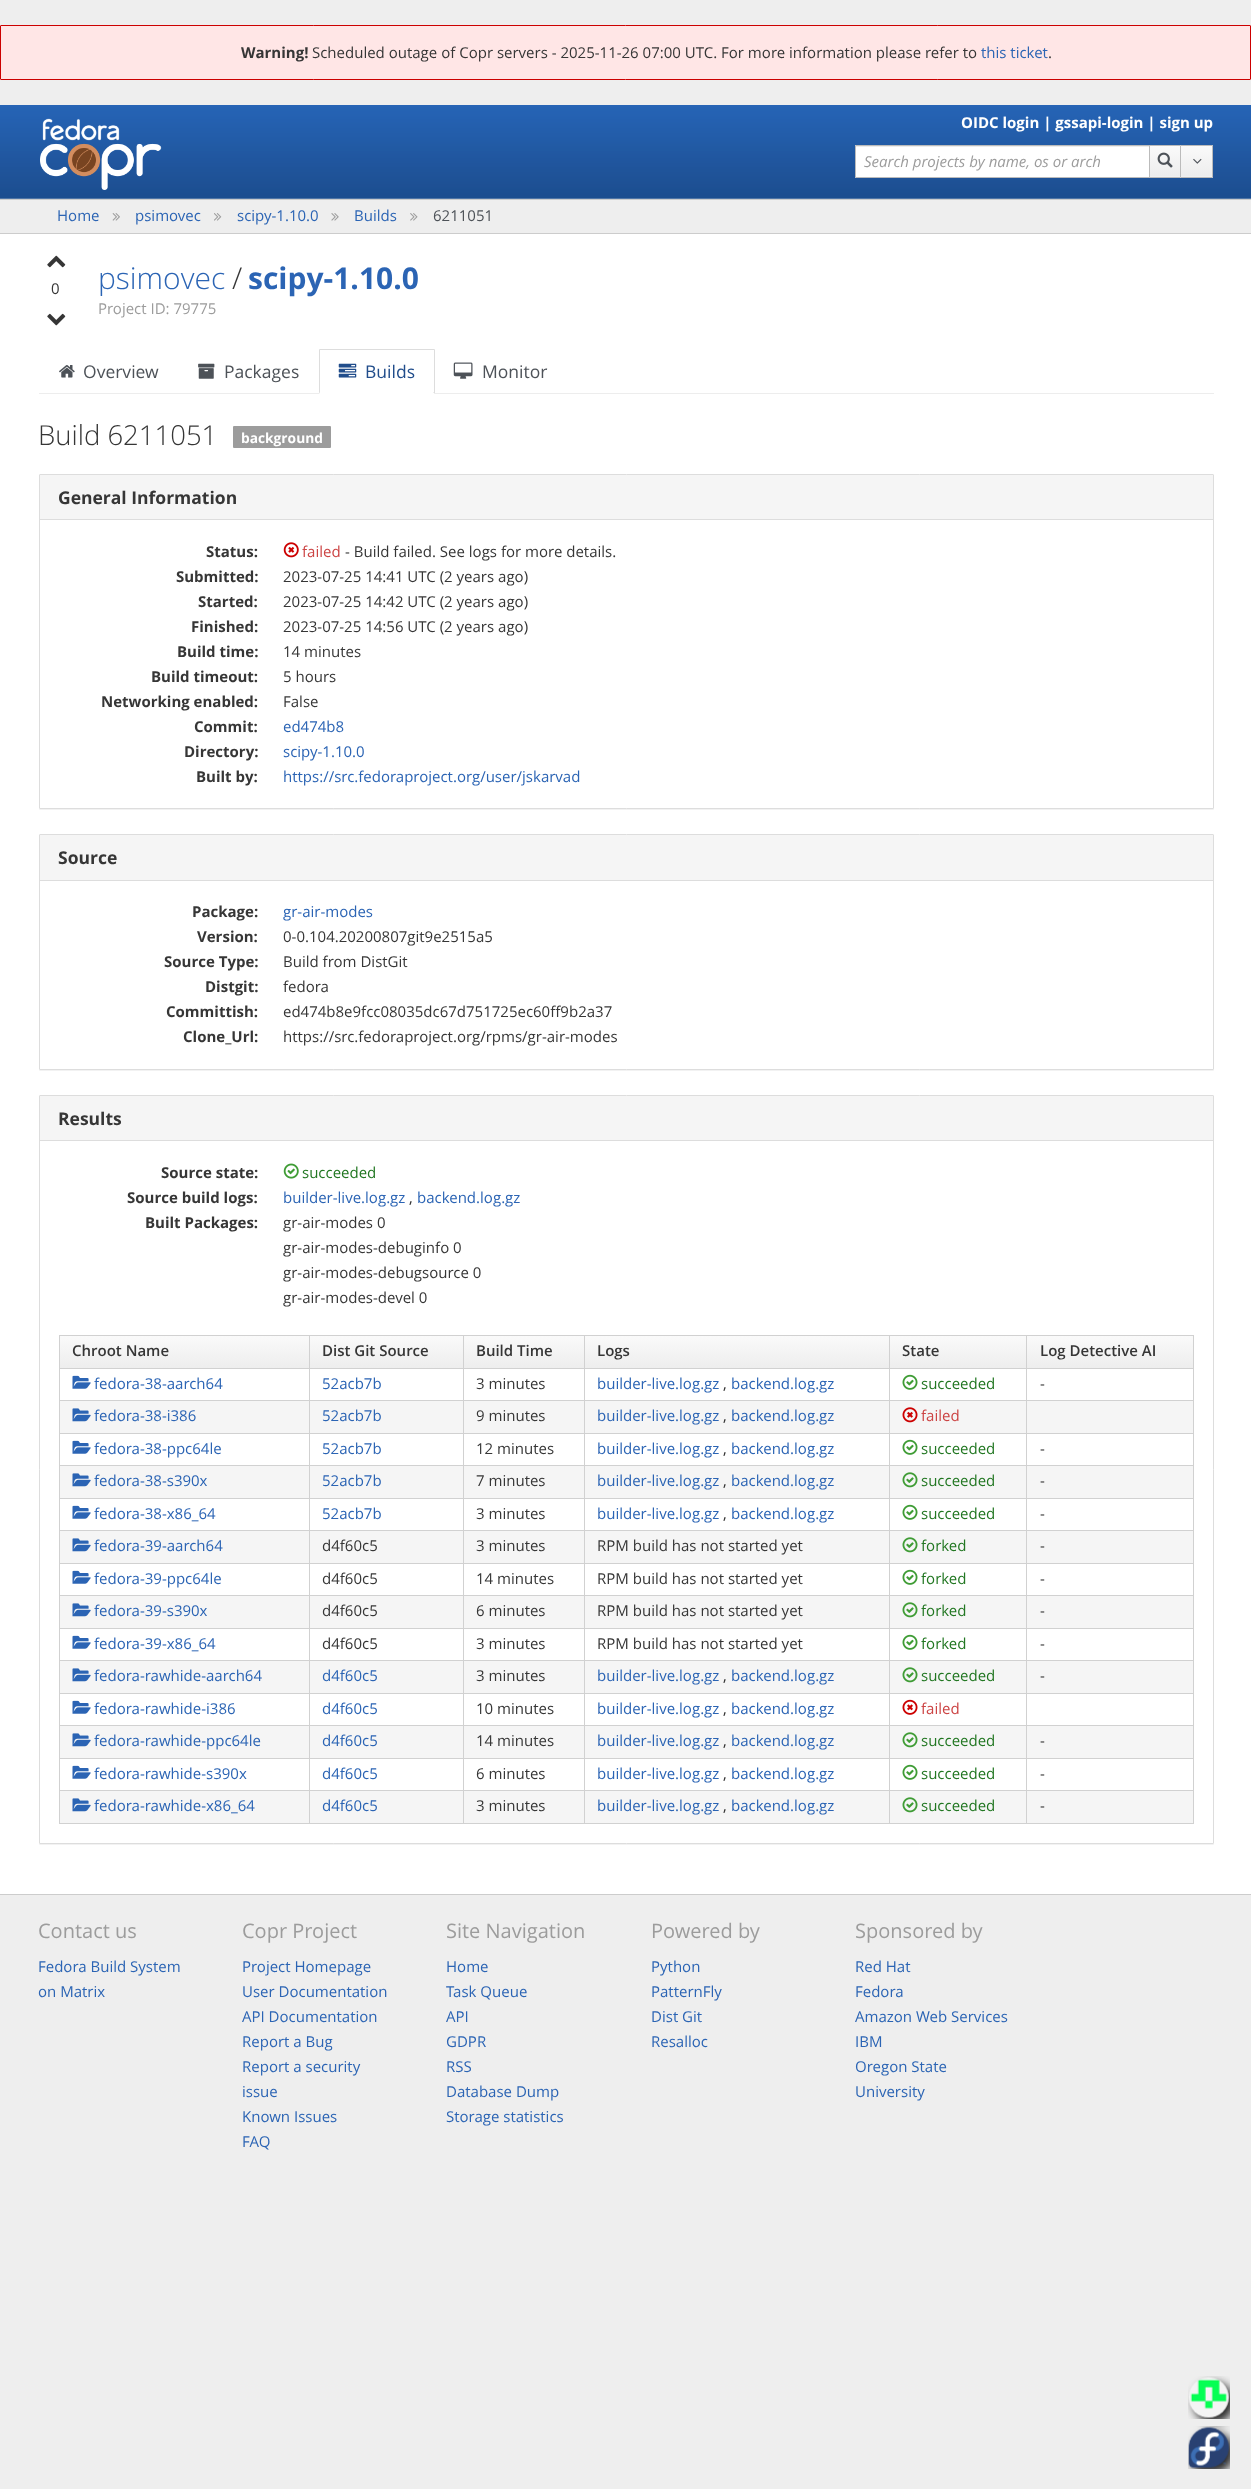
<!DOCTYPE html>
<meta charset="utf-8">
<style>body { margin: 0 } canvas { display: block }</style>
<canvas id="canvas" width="1251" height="2489"></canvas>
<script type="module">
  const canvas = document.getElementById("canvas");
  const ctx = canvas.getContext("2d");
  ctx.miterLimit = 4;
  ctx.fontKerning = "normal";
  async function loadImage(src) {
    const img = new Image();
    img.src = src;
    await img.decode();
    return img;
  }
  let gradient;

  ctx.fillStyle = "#eeeeee";
  ctx.fillRect(0, 0, 1251, 2489);
  ctx.fillStyle = "#ffe6e6";
  ctx.beginPath();
  ctx.roundRect(0.5, 25.5, 1250, 54, 0.5);
  ctx.fill();
  ctx.strokeStyle = "#cc0000";
  ctx.stroke();
  ctx.font = "bold 15px Open Sans";
  ctx.fillStyle = "#363636";
  ctx.fillText("Warning!", 241, 58);
  ctx.font = "15px Open Sans";
  ctx.fillText("Scheduled outage of Copr servers - 2025-11-26 07:00 UTC. For more information please refer to", 312, 58);
  ctx.fillStyle = "#2b64b4";
  ctx.fillText("this ticket", 981, 58);
  ctx.fillStyle = "#363636";
  ctx.fillText(".", 1048, 58);
  ctx.drawImage(await loadImage("img1.png"), 0, 105, 1251, 94);
  ctx.drawImage(await loadImage("img2.png"), 40, 118, 122, 72);
  ctx.font = "bold 15px Open Sans";
  ctx.fillStyle = "#ffffff";
  ctx.fillText("OIDC login | gssapi-login | sign up", 961, 128);
  ctx.beginPath();
  ctx.roundRect(855, 145, 295, 33, [1, 0, 0, 1]);
  ctx.fill();
  ctx.fillStyle = "#ececec";
  ctx.fillRect(856, 146, 293, 1);
  ctx.beginPath();
  ctx.roundRect(855.5, 145.5, 294, 32, [0.5, 0, 0, 0.5]);
  ctx.strokeStyle = "#bbbbbb";
  ctx.stroke();
  ctx.font = "italic 15px Open Sans";
  ctx.fillStyle = "#9c9c9c";
  ctx.fillText("Search projects by name, os or arch", 864, 167);
  ctx.fillStyle = "#f1f1f1";
  ctx.fillRect(1150, 176, 30, 1);
  gradient = ctx.createLinearGradient(1165, 146, 1165, 176);
  gradient.addColorStop(0, "#fafafa");
  gradient.addColorStop(1, "#ededed");
  ctx.fillStyle = gradient;
  ctx.fillRect(1150, 146, 30, 30);
  ctx.strokeRect(1149.5, 145.5, 31, 32);
  ctx.drawImage(await loadImage("img3.png"), 1157, 152, 16, 16);
  ctx.fillStyle = "#f1f1f1";
  ctx.beginPath();
  ctx.roundRect(1180, 145, 33, 33, [0, 1, 1, 0]);
  ctx.fill();
  gradient = ctx.createLinearGradient(1196, 146, 1196, 176);
  gradient.addColorStop(0, "#fafafa");
  gradient.addColorStop(1, "#ededed");
  ctx.fillStyle = gradient;
  ctx.fillRect(1181, 146, 31, 30);
  ctx.beginPath();
  ctx.roundRect(1180.5, 145.5, 32, 32, [0, 0.5, 0.5, 0]);
  ctx.stroke();
  ctx.drawImage(await loadImage("img4.png"), 1193, 158, 9, 6);
  ctx.fillStyle = "#cccccc";
  ctx.fillRect(0, 199, 1251, 1);
  ctx.fillRect(0, 233, 1251, 1);
  ctx.font = "15px Open Sans";
  ctx.fillStyle = "#2b64b4";
  ctx.fillText("Home", 57, 221);
  ctx.drawImage(await loadImage("img5.png"), 112, 213, 8, 8);
  ctx.fillText("psimovec", 135, 221);
  ctx.drawImage(await loadImage("img6.png"), 214, 213, 8, 8);
  ctx.fillText("scipy-1.10.0", 237, 221);
  ctx.drawImage(await loadImage("img7.png"), 331, 213, 8, 8);
  ctx.fillText("Builds", 354, 221);
  ctx.drawImage(await loadImage("img8.png"), 410, 213, 8, 8);
  ctx.fillStyle = "#4d5258";
  ctx.fillText("6211051", 433, 221);
  ctx.fillStyle = "#ffffff";
  ctx.fillRect(0, 234, 1251, 1660);
  ctx.drawImage(await loadImage("img9.png"), 47, 255, 19, 13);
  ctx.fillStyle = "#363636";
  ctx.fillText("0", 51, 294);
  ctx.drawImage(await loadImage("img10.png"), 47, 313, 19, 13);
  ctx.font = "300 30px Open Sans";
  ctx.fillStyle = "#2b64b4";
  ctx.fillText("psimovec", 98, 289);
  ctx.fillStyle = "#363636";
  ctx.fillText("/", 232, 289);
  ctx.font = "bold 30px Open Sans";
  ctx.fillStyle = "#2b64b4";
  ctx.fillText("scipy-1.10.0", 248, 289);
  ctx.font = "15px Open Sans";
  ctx.fillStyle = "#9c9c9c";
  ctx.fillText("Project ID: 79775", 98, 314);
  ctx.fillStyle = "#ededed";
  ctx.fillRect(39, 393, 1175, 1);
  ctx.drawImage(await loadImage("img11.png"), 59, 365, 16, 13);
  ctx.font = "17.5px Open Sans";
  ctx.fillStyle = "#4d5258";
  ctx.fillText("Overview", 83, 378);
  ctx.drawImage(await loadImage("img12.png"), 198, 363, 17, 16);
  ctx.fillText("Packages", 224, 378);
  ctx.fillStyle = "#ffffff";
  ctx.beginPath();
  ctx.roundRect(319, 349, 116, 45, [1, 1, 0, 0]);
  ctx.fill();
  ctx.fillStyle = "#dddddd";
  ctx.beginPath();
  ctx.moveTo(320, 349);
  ctx.lineTo(319, 349);
  ctx.lineTo(320, 350);
  ctx.lineTo(434, 350);
  ctx.lineTo(435, 349);
  ctx.lineTo(434, 349);
  ctx.closePath();
  ctx.fill();
  ctx.beginPath();
  ctx.moveTo(435, 349);
  ctx.lineTo(435, 394);
  ctx.lineTo(433, 392);
  ctx.lineTo(434, 392);
  ctx.lineTo(434, 350);
  ctx.closePath();
  ctx.fill();
  ctx.beginPath();
  ctx.moveTo(320, 350);
  ctx.lineTo(319, 349);
  ctx.lineTo(319, 394);
  ctx.lineTo(320, 392);
  ctx.closePath();
  ctx.fill();
  ctx.drawImage(await loadImage("img13.png"), 338, 363, 19, 15);
  ctx.fillStyle = "#214d8b";
  ctx.fillText("Builds", 365, 378);
  ctx.drawImage(await loadImage("img14.png"), 453, 362, 20, 17);
  ctx.fillStyle = "#4d5258";
  ctx.fillText("Monitor", 482, 378);
  ctx.font = "300 27.5px Open Sans";
  ctx.fillStyle = "#363636";
  ctx.fillText("Build 6211051", 38, 445);
  ctx.fillStyle = "#9c9c9c";
  ctx.beginPath();
  ctx.roundRect(233, 426, 98, 22, 1);
  ctx.fill();
  ctx.font = "bold 13.75px Open Sans";
  ctx.fillStyle = "#ffffff";
  ctx.fillText("background", 241, 443);
  ctx.fillStyle = "rgba(0, 0, 0, 0.05)";
  ctx.filter = "blur(0.5px)";
  ctx.beginPath();
  ctx.roundRect(39, 475, 1175, 335, 1);
  ctx.fill();
  ctx.filter = "none";
  ctx.fillStyle = "#ffffff";
  ctx.beginPath();
  ctx.roundRect(39.5, 474.5, 1174, 334, 0.5);
  ctx.fill();
  ctx.strokeStyle = "#dddddd";
  ctx.stroke();
  ctx.fillStyle = "#f5f5f5";
  ctx.fillRect(40, 475, 1173, 44);
  ctx.fillStyle = "#dddddd";
  ctx.fillRect(40, 519, 1173, 1);
  ctx.font = "bold 17.5px Open Sans";
  ctx.fillStyle = "#363636";
  ctx.fillText("General Information", 58, 504);
  ctx.font = "bold 15px Open Sans";
  ctx.fillText("Status:", 206, 557);
  ctx.drawImage(await loadImage("img15.png"), 283, 542, 16, 16);
  ctx.font = "15px Open Sans";
  ctx.fillStyle = "#cc4444";
  ctx.fillText("failed", 302, 557);
  ctx.fillStyle = "#363636";
  ctx.fillText("- Build failed. See logs for more details.", 345, 557);
  ctx.font = "bold 15px Open Sans";
  ctx.fillText("Submitted:", 176, 582);
  ctx.font = "15px Open Sans";
  ctx.fillText("2023-07-25 14:41 UTC (2 years ago)", 283, 582);
  ctx.font = "bold 15px Open Sans";
  ctx.fillText("Started:", 198, 607);
  ctx.font = "15px Open Sans";
  ctx.fillText("2023-07-25 14:42 UTC (2 years ago)", 283, 607);
  ctx.font = "bold 15px Open Sans";
  ctx.fillText("Finished:", 191, 632);
  ctx.font = "15px Open Sans";
  ctx.fillText("2023-07-25 14:56 UTC (2 years ago)", 283, 632);
  ctx.font = "bold 15px Open Sans";
  ctx.fillText("Build time:", 177, 657);
  ctx.font = "15px Open Sans";
  ctx.fillText("14 minutes", 283, 657);
  ctx.font = "bold 15px Open Sans";
  ctx.fillText("Build timeout:", 151, 682);
  ctx.font = "15px Open Sans";
  ctx.fillText("5 hours", 283, 682);
  ctx.font = "bold 15px Open Sans";
  ctx.fillText("Networking enabled:", 101, 707);
  ctx.font = "15px Open Sans";
  ctx.fillText("False", 283, 707);
  ctx.font = "bold 15px Open Sans";
  ctx.fillText("Commit:", 194, 732);
  ctx.font = "15px Open Sans";
  ctx.fillStyle = "#2b64b4";
  ctx.fillText("ed474b8", 283, 732);
  ctx.font = "bold 15px Open Sans";
  ctx.fillStyle = "#363636";
  ctx.fillText("Directory:", 184, 757);
  ctx.font = "15px Open Sans";
  ctx.fillStyle = "#2b64b4";
  ctx.fillText("scipy-1.10.0", 283, 757);
  ctx.font = "bold 15px Open Sans";
  ctx.fillStyle = "#363636";
  ctx.fillText("Built by:", 196, 782);
  ctx.font = "15px Open Sans";
  ctx.fillStyle = "#2b64b4";
  ctx.fillText("https://src.fedoraproject.org/user/jskarvad", 283, 782);
  ctx.fillStyle = "rgba(0, 0, 0, 0.05)";
  ctx.filter = "blur(0.5px)";
  ctx.beginPath();
  ctx.roundRect(39, 835, 1175, 236, 1);
  ctx.fill();
  ctx.filter = "none";
  ctx.fillStyle = "#ffffff";
  ctx.beginPath();
  ctx.roundRect(39.5, 834.5, 1174, 235, 0.5);
  ctx.fill();
  ctx.stroke();
  ctx.fillStyle = "#f5f5f5";
  ctx.fillRect(40, 835, 1173, 45);
  ctx.fillStyle = "#dddddd";
  ctx.fillRect(40, 880, 1173, 1);
  ctx.font = "bold 17.5px Open Sans";
  ctx.fillStyle = "#363636";
  ctx.fillText("Source", 58, 864);
  ctx.font = "bold 15px Open Sans";
  ctx.fillText("Package:", 192, 917);
  ctx.font = "15px Open Sans";
  ctx.fillStyle = "#2b64b4";
  ctx.fillText("gr-air-modes", 283, 917);
  ctx.font = "bold 15px Open Sans";
  ctx.fillStyle = "#363636";
  ctx.fillText("Version:", 197, 942);
  ctx.font = "15px Open Sans";
  ctx.fillText("0-0.104.20200807git9e2515a5", 283, 942);
  ctx.font = "bold 15px Open Sans";
  ctx.fillText("Source Type:", 164, 967);
  ctx.font = "15px Open Sans";
  ctx.fillText("Build from DistGit", 283, 967);
  ctx.font = "bold 15px Open Sans";
  ctx.fillText("Distgit:", 205, 992);
  ctx.font = "15px Open Sans";
  ctx.fillText("fedora", 283, 992);
  ctx.font = "bold 15px Open Sans";
  ctx.fillText("Committish:", 166, 1017);
  ctx.font = "15px Open Sans";
  ctx.fillText("ed474b8e9fcc08035dc67d751725ec60ff9b2a37", 283, 1017);
  ctx.font = "bold 15px Open Sans";
  ctx.fillText("Clone_Url:", 183, 1042);
  ctx.font = "15px Open Sans";
  ctx.fillText("https://src.fedoraproject.org/rpms/gr-air-modes", 283, 1042);
  ctx.fillStyle = "rgba(0, 0, 0, 0.05)";
  ctx.filter = "blur(0.5px)";
  ctx.beginPath();
  ctx.roundRect(39, 1096, 1175, 749, 1);
  ctx.fill();
  ctx.filter = "none";
  ctx.fillStyle = "#ffffff";
  ctx.beginPath();
  ctx.roundRect(39.5, 1095.5, 1174, 748, 0.5);
  ctx.fill();
  ctx.stroke();
  ctx.fillStyle = "#f5f5f5";
  ctx.fillRect(40, 1096, 1173, 44);
  ctx.fillStyle = "#dddddd";
  ctx.fillRect(40, 1140, 1173, 1);
  ctx.font = "bold 17.5px Open Sans";
  ctx.fillStyle = "#363636";
  ctx.fillText("Results", 58, 1125);
  ctx.font = "bold 15px Open Sans";
  ctx.fillText("Source state:", 161, 1178);
  ctx.drawImage(await loadImage("img16.png"), 283, 1163, 16, 16);
  ctx.font = "15px Open Sans";
  ctx.fillStyle = "#227722";
  ctx.fillText("succeeded", 302, 1178);
  ctx.font = "bold 15px Open Sans";
  ctx.fillStyle = "#363636";
  ctx.fillText("Source build logs:", 127, 1203);
  ctx.font = "15px Open Sans";
  ctx.fillStyle = "#2b64b4";
  ctx.fillText("builder-live.log.gz", 283, 1203);
  ctx.fillStyle = "#363636";
  ctx.fillText(",", 409, 1203);
  ctx.fillStyle = "#2b64b4";
  ctx.fillText("backend.log.gz", 417, 1203);
  ctx.font = "bold 15px Open Sans";
  ctx.fillStyle = "#363636";
  ctx.fillText("Built Packages:", 145, 1228);
  ctx.font = "15px Open Sans";
  ctx.fillText("gr-air-modes 0", 283, 1228);
  ctx.fillText("gr-air-modes-debuginfo 0", 283, 1253);
  ctx.fillText("gr-air-modes-debugsource 0", 283, 1278);
  ctx.fillText("gr-air-modes-devel 0", 283, 1303);
  ctx.fillStyle = "#d1d1d1";
  ctx.fillRect(59, 1335, 1135, 1);
  ctx.fillRect(1193, 1335, 1, 489);
  ctx.fillRect(59, 1823, 1135, 1);
  ctx.fillRect(59, 1335, 1, 489);
  gradient = ctx.createLinearGradient(626, 1336, 626, 1369);
  gradient.addColorStop(0, "#fafafa");
  gradient.addColorStop(1, "#ededed");
  ctx.fillStyle = gradient;
  ctx.fillRect(60, 1336, 1133, 32);
  ctx.font = "600 15px Open Sans";
  ctx.fillStyle = "#363636";
  ctx.fillText("Chroot Name", 72, 1356);
  ctx.fillStyle = "#d1d1d1";
  ctx.fillRect(1026, 1368, 168, 1);
  ctx.fillRect(1026, 1400, 168, 1);
  ctx.fillStyle = "#f5f5f5";
  ctx.fillRect(60, 1401, 1133, 32);
  ctx.fillStyle = "#d1d1d1";
  ctx.fillRect(1026, 1433, 168, 1);
  ctx.fillRect(1026, 1465, 168, 1);
  ctx.fillStyle = "#f5f5f5";
  ctx.fillRect(60, 1466, 1133, 32);
  ctx.fillStyle = "#d1d1d1";
  ctx.fillRect(1026, 1498, 168, 1);
  ctx.fillRect(1026, 1530, 168, 1);
  ctx.fillStyle = "#f5f5f5";
  ctx.fillRect(60, 1531, 1133, 32);
  ctx.fillStyle = "#d1d1d1";
  ctx.fillRect(1026, 1563, 168, 1);
  ctx.fillRect(1026, 1595, 168, 1);
  ctx.fillStyle = "#f5f5f5";
  ctx.fillRect(60, 1596, 1133, 32);
  ctx.fillStyle = "#d1d1d1";
  ctx.fillRect(1026, 1628, 168, 1);
  ctx.fillRect(1026, 1660, 168, 1);
  ctx.fillStyle = "#f5f5f5";
  ctx.fillRect(60, 1661, 1133, 32);
  ctx.fillStyle = "#d1d1d1";
  ctx.fillRect(1026, 1693, 168, 1);
  ctx.fillRect(1026, 1725, 168, 1);
  ctx.fillStyle = "#f5f5f5";
  ctx.fillRect(60, 1726, 1133, 32);
  ctx.fillStyle = "#d1d1d1";
  ctx.fillRect(1026, 1758, 168, 1);
  ctx.fillRect(1026, 1790, 168, 1);
  ctx.fillStyle = "#f5f5f5";
  ctx.fillRect(60, 1791, 1133, 32);
  ctx.fillStyle = "#d1d1d1";
  ctx.fillRect(1026, 1790, 1, 34);
  ctx.fillRect(889, 1790, 139, 1);
  ctx.fillRect(1026, 1758, 1, 33);
  ctx.fillRect(889, 1758, 139, 1);
  ctx.fillRect(1026, 1725, 1, 34);
  ctx.fillRect(889, 1725, 139, 1);
  ctx.fillRect(1026, 1693, 1, 33);
  ctx.fillRect(889, 1693, 139, 1);
  ctx.fillRect(1026, 1660, 1, 34);
  ctx.fillRect(889, 1660, 139, 1);
  ctx.fillRect(1026, 1628, 1, 33);
  ctx.fillRect(889, 1628, 139, 1);
  ctx.fillRect(1026, 1595, 1, 34);
  ctx.fillRect(889, 1595, 139, 1);
  ctx.fillRect(1026, 1563, 1, 33);
  ctx.fillRect(889, 1563, 139, 1);
  ctx.fillRect(1026, 1530, 1, 34);
  ctx.fillRect(889, 1530, 139, 1);
  ctx.fillRect(1026, 1498, 1, 33);
  ctx.fillRect(889, 1498, 139, 1);
  ctx.fillRect(1026, 1465, 1, 34);
  ctx.fillRect(889, 1465, 139, 1);
  ctx.fillRect(1026, 1433, 1, 33);
  ctx.fillRect(889, 1433, 139, 1);
  ctx.fillRect(1026, 1400, 1, 34);
  ctx.fillRect(889, 1400, 139, 1);
  ctx.fillRect(1026, 1368, 1, 33);
  ctx.fillRect(889, 1368, 139, 1);
  ctx.fillRect(889, 1790, 1, 34);
  ctx.fillRect(584, 1790, 306, 1);
  ctx.fillRect(889, 1758, 1, 33);
  ctx.fillRect(584, 1758, 306, 1);
  ctx.fillRect(889, 1725, 1, 34);
  ctx.fillRect(584, 1725, 306, 1);
  ctx.fillRect(889, 1693, 1, 33);
  ctx.fillRect(584, 1693, 306, 1);
  ctx.fillRect(889, 1660, 1, 34);
  ctx.fillRect(584, 1660, 306, 1);
  ctx.fillRect(889, 1628, 1, 33);
  ctx.fillRect(584, 1628, 306, 1);
  ctx.fillRect(889, 1595, 1, 34);
  ctx.fillRect(584, 1595, 306, 1);
  ctx.fillRect(889, 1563, 1, 33);
  ctx.fillRect(584, 1563, 306, 1);
  ctx.fillRect(889, 1530, 1, 34);
  ctx.fillRect(584, 1530, 306, 1);
  ctx.fillRect(889, 1498, 1, 33);
  ctx.fillRect(584, 1498, 306, 1);
  ctx.fillRect(889, 1465, 1, 34);
  ctx.fillRect(584, 1465, 306, 1);
  ctx.fillRect(889, 1433, 1, 33);
  ctx.fillRect(584, 1433, 306, 1);
  ctx.fillRect(889, 1400, 1, 34);
  ctx.fillRect(584, 1400, 306, 1);
  ctx.fillRect(889, 1368, 1, 33);
  ctx.fillRect(584, 1368, 306, 1);
  ctx.fillRect(584, 1790, 1, 34);
  ctx.fillRect(463, 1790, 122, 1);
  ctx.fillRect(584, 1758, 1, 33);
  ctx.fillRect(463, 1758, 122, 1);
  ctx.fillRect(584, 1725, 1, 34);
  ctx.fillRect(463, 1725, 122, 1);
  ctx.fillRect(584, 1693, 1, 33);
  ctx.fillRect(463, 1693, 122, 1);
  ctx.fillRect(584, 1660, 1, 34);
  ctx.fillRect(463, 1660, 122, 1);
  ctx.fillRect(584, 1628, 1, 33);
  ctx.fillRect(463, 1628, 122, 1);
  ctx.fillRect(584, 1595, 1, 34);
  ctx.fillRect(463, 1595, 122, 1);
  ctx.fillRect(584, 1563, 1, 33);
  ctx.fillRect(463, 1563, 122, 1);
  ctx.fillRect(584, 1530, 1, 34);
  ctx.fillRect(463, 1530, 122, 1);
  ctx.fillRect(584, 1498, 1, 33);
  ctx.fillRect(463, 1498, 122, 1);
  ctx.fillRect(584, 1465, 1, 34);
  ctx.fillRect(463, 1465, 122, 1);
  ctx.fillRect(584, 1433, 1, 33);
  ctx.fillRect(463, 1433, 122, 1);
  ctx.fillRect(584, 1400, 1, 34);
  ctx.fillRect(463, 1400, 122, 1);
  ctx.fillRect(584, 1368, 1, 33);
  ctx.fillRect(463, 1368, 122, 1);
  ctx.fillRect(463, 1790, 1, 34);
  ctx.fillRect(309, 1790, 155, 1);
  ctx.fillRect(463, 1758, 1, 33);
  ctx.fillRect(309, 1758, 155, 1);
  ctx.fillRect(463, 1725, 1, 34);
  ctx.fillRect(309, 1725, 155, 1);
  ctx.fillRect(463, 1693, 1, 33);
  ctx.fillRect(309, 1693, 155, 1);
  ctx.fillRect(463, 1660, 1, 34);
  ctx.fillRect(309, 1660, 155, 1);
  ctx.fillRect(463, 1628, 1, 33);
  ctx.fillRect(309, 1628, 155, 1);
  ctx.fillRect(463, 1595, 1, 34);
  ctx.fillRect(309, 1595, 155, 1);
  ctx.fillRect(463, 1563, 1, 33);
  ctx.fillRect(309, 1563, 155, 1);
  ctx.fillRect(463, 1530, 1, 34);
  ctx.fillRect(309, 1530, 155, 1);
  ctx.fillRect(463, 1498, 1, 33);
  ctx.fillRect(309, 1498, 155, 1);
  ctx.fillRect(463, 1465, 1, 34);
  ctx.fillRect(309, 1465, 155, 1);
  ctx.fillRect(463, 1433, 1, 33);
  ctx.fillRect(309, 1433, 155, 1);
  ctx.fillRect(463, 1400, 1, 34);
  ctx.fillRect(309, 1400, 155, 1);
  ctx.fillRect(463, 1368, 1, 33);
  ctx.fillRect(309, 1368, 155, 1);
  ctx.fillRect(309, 1790, 1, 34);
  ctx.fillRect(59, 1790, 251, 1);
  ctx.fillRect(309, 1758, 1, 33);
  ctx.fillRect(59, 1758, 251, 1);
  ctx.fillRect(309, 1725, 1, 34);
  ctx.fillRect(59, 1725, 251, 1);
  ctx.fillRect(309, 1693, 1, 33);
  ctx.fillRect(59, 1693, 251, 1);
  ctx.fillRect(309, 1660, 1, 34);
  ctx.fillRect(59, 1660, 251, 1);
  ctx.fillRect(309, 1628, 1, 33);
  ctx.fillRect(59, 1628, 251, 1);
  ctx.fillRect(309, 1595, 1, 34);
  ctx.fillRect(59, 1595, 251, 1);
  ctx.fillRect(309, 1563, 1, 33);
  ctx.fillRect(59, 1563, 251, 1);
  ctx.fillRect(309, 1530, 1, 34);
  ctx.fillRect(59, 1530, 251, 1);
  ctx.fillRect(309, 1498, 1, 33);
  ctx.fillRect(59, 1498, 251, 1);
  ctx.fillRect(309, 1465, 1, 34);
  ctx.fillRect(59, 1465, 251, 1);
  ctx.fillRect(309, 1433, 1, 33);
  ctx.fillRect(59, 1433, 251, 1);
  ctx.fillRect(309, 1400, 1, 34);
  ctx.fillRect(59, 1400, 251, 1);
  ctx.fillRect(309, 1368, 1, 33);
  ctx.fillRect(59, 1368, 251, 1);
  ctx.fillRect(309, 1335, 1, 34);
  ctx.fillStyle = "#363636";
  ctx.fillText("Dist Git Source", 322, 1356);
  ctx.fillStyle = "#d1d1d1";
  ctx.fillRect(463, 1335, 1, 34);
  ctx.fillStyle = "#363636";
  ctx.fillText("Build Time", 476, 1356);
  ctx.fillStyle = "#d1d1d1";
  ctx.fillRect(584, 1335, 1, 34);
  ctx.fillStyle = "#363636";
  ctx.fillText("Logs", 597, 1356);
  ctx.fillStyle = "#d1d1d1";
  ctx.fillRect(889, 1335, 1, 34);
  ctx.fillStyle = "#363636";
  ctx.fillText("State", 902, 1356);
  ctx.fillStyle = "#d1d1d1";
  ctx.fillRect(1026, 1335, 1, 34);
  ctx.fillStyle = "#363636";
  ctx.fillText("Log Detective AI", 1040, 1356);
  ctx.drawImage(await loadImage("img17.png"), 72, 1375, 19, 14);
  ctx.font = "15px Open Sans";
  ctx.fillStyle = "#2b64b4";
  ctx.fillText("fedora-38-aarch64", 94, 1389);
  ctx.fillText("52acb7b", 322, 1389);
  ctx.fillStyle = "#363636";
  ctx.fillText("3 minutes", 476, 1389);
  ctx.fillStyle = "#2b64b4";
  ctx.fillText("builder-live.log.gz", 597, 1389);
  ctx.fillStyle = "#363636";
  ctx.fillText(",", 723, 1389);
  ctx.fillStyle = "#2b64b4";
  ctx.fillText("backend.log.gz", 731, 1389);
  ctx.drawImage(await loadImage("img18.png"), 902, 1374, 16, 16);
  ctx.fillStyle = "#227722";
  ctx.fillText("succeeded", 921, 1389);
  ctx.fillStyle = "#363636";
  ctx.fillText("-", 1040, 1389);
  ctx.drawImage(await loadImage("img19.png"), 72, 1408, 19, 14);
  ctx.fillStyle = "#2b64b4";
  ctx.fillText("fedora-38-i386", 94, 1421);
  ctx.fillText("52acb7b", 322, 1421);
  ctx.fillStyle = "#363636";
  ctx.fillText("9 minutes", 476, 1421);
  ctx.fillStyle = "#2b64b4";
  ctx.fillText("builder-live.log.gz", 597, 1421);
  ctx.fillStyle = "#363636";
  ctx.fillText(",", 723, 1421);
  ctx.fillStyle = "#2b64b4";
  ctx.fillText("backend.log.gz", 731, 1421);
  ctx.drawImage(await loadImage("img20.png"), 902, 1407, 16, 16);
  ctx.fillStyle = "#cc4444";
  ctx.fillText("failed", 921, 1421);
  ctx.drawImage(await loadImage("img17.png"), 72, 1440, 19, 14);
  ctx.fillStyle = "#2b64b4";
  ctx.fillText("fedora-38-ppc64le", 94, 1454);
  ctx.fillText("52acb7b", 322, 1454);
  ctx.fillStyle = "#363636";
  ctx.fillText("12 minutes", 476, 1454);
  ctx.fillStyle = "#2b64b4";
  ctx.fillText("builder-live.log.gz", 597, 1454);
  ctx.fillStyle = "#363636";
  ctx.fillText(",", 723, 1454);
  ctx.fillStyle = "#2b64b4";
  ctx.fillText("backend.log.gz", 731, 1454);
  ctx.drawImage(await loadImage("img18.png"), 902, 1439, 16, 16);
  ctx.fillStyle = "#227722";
  ctx.fillText("succeeded", 921, 1454);
  ctx.fillStyle = "#363636";
  ctx.fillText("-", 1040, 1454);
  ctx.drawImage(await loadImage("img19.png"), 72, 1473, 19, 14);
  ctx.fillStyle = "#2b64b4";
  ctx.fillText("fedora-38-s390x", 94, 1486);
  ctx.fillText("52acb7b", 322, 1486);
  ctx.fillStyle = "#363636";
  ctx.fillText("7 minutes", 476, 1486);
  ctx.fillStyle = "#2b64b4";
  ctx.fillText("builder-live.log.gz", 597, 1486);
  ctx.fillStyle = "#363636";
  ctx.fillText(",", 723, 1486);
  ctx.fillStyle = "#2b64b4";
  ctx.fillText("backend.log.gz", 731, 1486);
  ctx.drawImage(await loadImage("img21.png"), 902, 1472, 16, 16);
  ctx.fillStyle = "#227722";
  ctx.fillText("succeeded", 921, 1486);
  ctx.fillStyle = "#363636";
  ctx.fillText("-", 1040, 1486);
  ctx.drawImage(await loadImage("img17.png"), 72, 1505, 19, 14);
  ctx.fillStyle = "#2b64b4";
  ctx.fillText("fedora-38-x86_64", 94, 1519);
  ctx.fillText("52acb7b", 322, 1519);
  ctx.fillStyle = "#363636";
  ctx.fillText("3 minutes", 476, 1519);
  ctx.fillStyle = "#2b64b4";
  ctx.fillText("builder-live.log.gz", 597, 1519);
  ctx.fillStyle = "#363636";
  ctx.fillText(",", 723, 1519);
  ctx.fillStyle = "#2b64b4";
  ctx.fillText("backend.log.gz", 731, 1519);
  ctx.drawImage(await loadImage("img18.png"), 902, 1504, 16, 16);
  ctx.fillStyle = "#227722";
  ctx.fillText("succeeded", 921, 1519);
  ctx.fillStyle = "#363636";
  ctx.fillText("-", 1040, 1519);
  ctx.drawImage(await loadImage("img19.png"), 72, 1538, 19, 14);
  ctx.fillStyle = "#2b64b4";
  ctx.fillText("fedora-39-aarch64", 94, 1551);
  ctx.fillStyle = "#363636";
  ctx.fillText("d4f60c5", 322, 1551);
  ctx.fillText("3 minutes", 476, 1551);
  ctx.fillText("RPM build has not started yet", 597, 1551);
  ctx.drawImage(await loadImage("img21.png"), 902, 1537, 16, 16);
  ctx.fillStyle = "#227722";
  ctx.fillText("forked", 921, 1551);
  ctx.fillStyle = "#363636";
  ctx.fillText("-", 1040, 1551);
  ctx.drawImage(await loadImage("img17.png"), 72, 1570, 19, 14);
  ctx.fillStyle = "#2b64b4";
  ctx.fillText("fedora-39-ppc64le", 94, 1584);
  ctx.fillStyle = "#363636";
  ctx.fillText("d4f60c5", 322, 1584);
  ctx.fillText("14 minutes", 476, 1584);
  ctx.fillText("RPM build has not started yet", 597, 1584);
  ctx.drawImage(await loadImage("img18.png"), 902, 1569, 16, 16);
  ctx.fillStyle = "#227722";
  ctx.fillText("forked", 921, 1584);
  ctx.fillStyle = "#363636";
  ctx.fillText("-", 1040, 1584);
  ctx.drawImage(await loadImage("img19.png"), 72, 1603, 19, 14);
  ctx.fillStyle = "#2b64b4";
  ctx.fillText("fedora-39-s390x", 94, 1616);
  ctx.fillStyle = "#363636";
  ctx.fillText("d4f60c5", 322, 1616);
  ctx.fillText("6 minutes", 476, 1616);
  ctx.fillText("RPM build has not started yet", 597, 1616);
  ctx.drawImage(await loadImage("img21.png"), 902, 1602, 16, 16);
  ctx.fillStyle = "#227722";
  ctx.fillText("forked", 921, 1616);
  ctx.fillStyle = "#363636";
  ctx.fillText("-", 1040, 1616);
  ctx.drawImage(await loadImage("img17.png"), 72, 1635, 19, 14);
  ctx.fillStyle = "#2b64b4";
  ctx.fillText("fedora-39-x86_64", 94, 1649);
  ctx.fillStyle = "#363636";
  ctx.fillText("d4f60c5", 322, 1649);
  ctx.fillText("3 minutes", 476, 1649);
  ctx.fillText("RPM build has not started yet", 597, 1649);
  ctx.drawImage(await loadImage("img18.png"), 902, 1634, 16, 16);
  ctx.fillStyle = "#227722";
  ctx.fillText("forked", 921, 1649);
  ctx.fillStyle = "#363636";
  ctx.fillText("-", 1040, 1649);
  ctx.drawImage(await loadImage("img19.png"), 72, 1668, 19, 14);
  ctx.fillStyle = "#2b64b4";
  ctx.fillText("fedora-rawhide-aarch64", 94, 1681);
  ctx.fillText("d4f60c5", 322, 1681);
  ctx.fillStyle = "#363636";
  ctx.fillText("3 minutes", 476, 1681);
  ctx.fillStyle = "#2b64b4";
  ctx.fillText("builder-live.log.gz", 597, 1681);
  ctx.fillStyle = "#363636";
  ctx.fillText(",", 723, 1681);
  ctx.fillStyle = "#2b64b4";
  ctx.fillText("backend.log.gz", 731, 1681);
  ctx.drawImage(await loadImage("img21.png"), 902, 1667, 16, 16);
  ctx.fillStyle = "#227722";
  ctx.fillText("succeeded", 921, 1681);
  ctx.fillStyle = "#363636";
  ctx.fillText("-", 1040, 1681);
  ctx.drawImage(await loadImage("img17.png"), 72, 1700, 19, 14);
  ctx.fillStyle = "#2b64b4";
  ctx.fillText("fedora-rawhide-i386", 94, 1714);
  ctx.fillText("d4f60c5", 322, 1714);
  ctx.fillStyle = "#363636";
  ctx.fillText("10 minutes", 476, 1714);
  ctx.fillStyle = "#2b64b4";
  ctx.fillText("builder-live.log.gz", 597, 1714);
  ctx.fillStyle = "#363636";
  ctx.fillText(",", 723, 1714);
  ctx.fillStyle = "#2b64b4";
  ctx.fillText("backend.log.gz", 731, 1714);
  ctx.drawImage(await loadImage("img22.png"), 902, 1699, 16, 16);
  ctx.fillStyle = "#cc4444";
  ctx.fillText("failed", 921, 1714);
  ctx.drawImage(await loadImage("img19.png"), 72, 1733, 19, 14);
  ctx.fillStyle = "#2b64b4";
  ctx.fillText("fedora-rawhide-ppc64le", 94, 1746);
  ctx.fillText("d4f60c5", 322, 1746);
  ctx.fillStyle = "#363636";
  ctx.fillText("14 minutes", 476, 1746);
  ctx.fillStyle = "#2b64b4";
  ctx.fillText("builder-live.log.gz", 597, 1746);
  ctx.fillStyle = "#363636";
  ctx.fillText(",", 723, 1746);
  ctx.fillStyle = "#2b64b4";
  ctx.fillText("backend.log.gz", 731, 1746);
  ctx.drawImage(await loadImage("img21.png"), 902, 1732, 16, 16);
  ctx.fillStyle = "#227722";
  ctx.fillText("succeeded", 921, 1746);
  ctx.fillStyle = "#363636";
  ctx.fillText("-", 1040, 1746);
  ctx.drawImage(await loadImage("img17.png"), 72, 1765, 19, 14);
  ctx.fillStyle = "#2b64b4";
  ctx.fillText("fedora-rawhide-s390x", 94, 1779);
  ctx.fillText("d4f60c5", 322, 1779);
  ctx.fillStyle = "#363636";
  ctx.fillText("6 minutes", 476, 1779);
  ctx.fillStyle = "#2b64b4";
  ctx.fillText("builder-live.log.gz", 597, 1779);
  ctx.fillStyle = "#363636";
  ctx.fillText(",", 723, 1779);
  ctx.fillStyle = "#2b64b4";
  ctx.fillText("backend.log.gz", 731, 1779);
  ctx.drawImage(await loadImage("img18.png"), 902, 1764, 16, 16);
  ctx.fillStyle = "#227722";
  ctx.fillText("succeeded", 921, 1779);
  ctx.fillStyle = "#363636";
  ctx.fillText("-", 1040, 1779);
  ctx.drawImage(await loadImage("img19.png"), 72, 1798, 19, 14);
  ctx.fillStyle = "#2b64b4";
  ctx.fillText("fedora-rawhide-x86_64", 94, 1811);
  ctx.fillText("d4f60c5", 322, 1811);
  ctx.fillStyle = "#363636";
  ctx.fillText("3 minutes", 476, 1811);
  ctx.fillStyle = "#2b64b4";
  ctx.fillText("builder-live.log.gz", 597, 1811);
  ctx.fillStyle = "#363636";
  ctx.fillText(",", 723, 1811);
  ctx.fillStyle = "#2b64b4";
  ctx.fillText("backend.log.gz", 731, 1811);
  ctx.drawImage(await loadImage("img21.png"), 902, 1797, 16, 16);
  ctx.fillStyle = "#227722";
  ctx.fillText("succeeded", 921, 1811);
  ctx.fillStyle = "#363636";
  ctx.fillText("-", 1040, 1811);
  ctx.fillStyle = "#cccccc";
  ctx.fillRect(0, 1894, 1251, 1);
  ctx.font = "20px Open Sans";
  ctx.fillStyle = "#9c9c9c";
  ctx.fillText("Contact us", 38, 1938);
  ctx.font = "15px Open Sans";
  ctx.fillStyle = "#2b64b4";
  ctx.fillText("Fedora Build System", 38, 1972);
  ctx.fillText("on Matrix", 38, 1997);
  ctx.font = "20px Open Sans";
  ctx.fillStyle = "#9c9c9c";
  ctx.fillText("Copr Project", 242, 1938);
  ctx.font = "15px Open Sans";
  ctx.fillStyle = "#2b64b4";
  ctx.fillText("Project Homepage", 242, 1972);
  ctx.fillText("User Documentation", 242, 1997);
  ctx.fillText("API Documentation", 242, 2022);
  ctx.fillText("Report a Bug", 242, 2047);
  ctx.fillText("Report a security", 242, 2072);
  ctx.fillText("issue", 242, 2097);
  ctx.fillText("Known Issues", 242, 2122);
  ctx.fillText("FAQ", 242, 2147);
  ctx.font = "20px Open Sans";
  ctx.fillStyle = "#9c9c9c";
  ctx.fillText("Site Navigation", 446, 1938);
  ctx.font = "15px Open Sans";
  ctx.fillStyle = "#2b64b4";
  ctx.fillText("Home", 446, 1972);
  ctx.fillText("Task Queue", 446, 1997);
  ctx.fillText("API", 446, 2022);
  ctx.fillText("GDPR", 446, 2047);
  ctx.fillText("RSS", 446, 2072);
  ctx.fillText("Database Dump", 446, 2097);
  ctx.fillText("Storage statistics", 446, 2122);
  ctx.font = "20px Open Sans";
  ctx.fillStyle = "#9c9c9c";
  ctx.fillText("Powered by", 651, 1938);
  ctx.font = "15px Open Sans";
  ctx.fillStyle = "#2b64b4";
  ctx.fillText("Python", 651, 1972);
  ctx.fillText("PatternFly", 651, 1997);
  ctx.fillText("Dist Git", 651, 2022);
  ctx.fillText("Resalloc", 651, 2047);
  ctx.font = "20px Open Sans";
  ctx.fillStyle = "#9c9c9c";
  ctx.fillText("Sponsored by", 855, 1938);
  ctx.font = "15px Open Sans";
  ctx.fillStyle = "#2b64b4";
  ctx.fillText("Red Hat", 855, 1972);
  ctx.fillText("Fedora", 855, 1997);
  ctx.fillText("Amazon Web Services", 855, 2022);
  ctx.fillText("IBM", 855, 2047);
  ctx.fillText("Oregon State", 855, 2072);
  ctx.fillText("University", 855, 2097);
  ctx.drawImage(await loadImage("img23.png"), 1188, 2376, 42, 43);
  ctx.drawImage(await loadImage("img24.png"), 1188, 2426, 42, 43);
</script>
